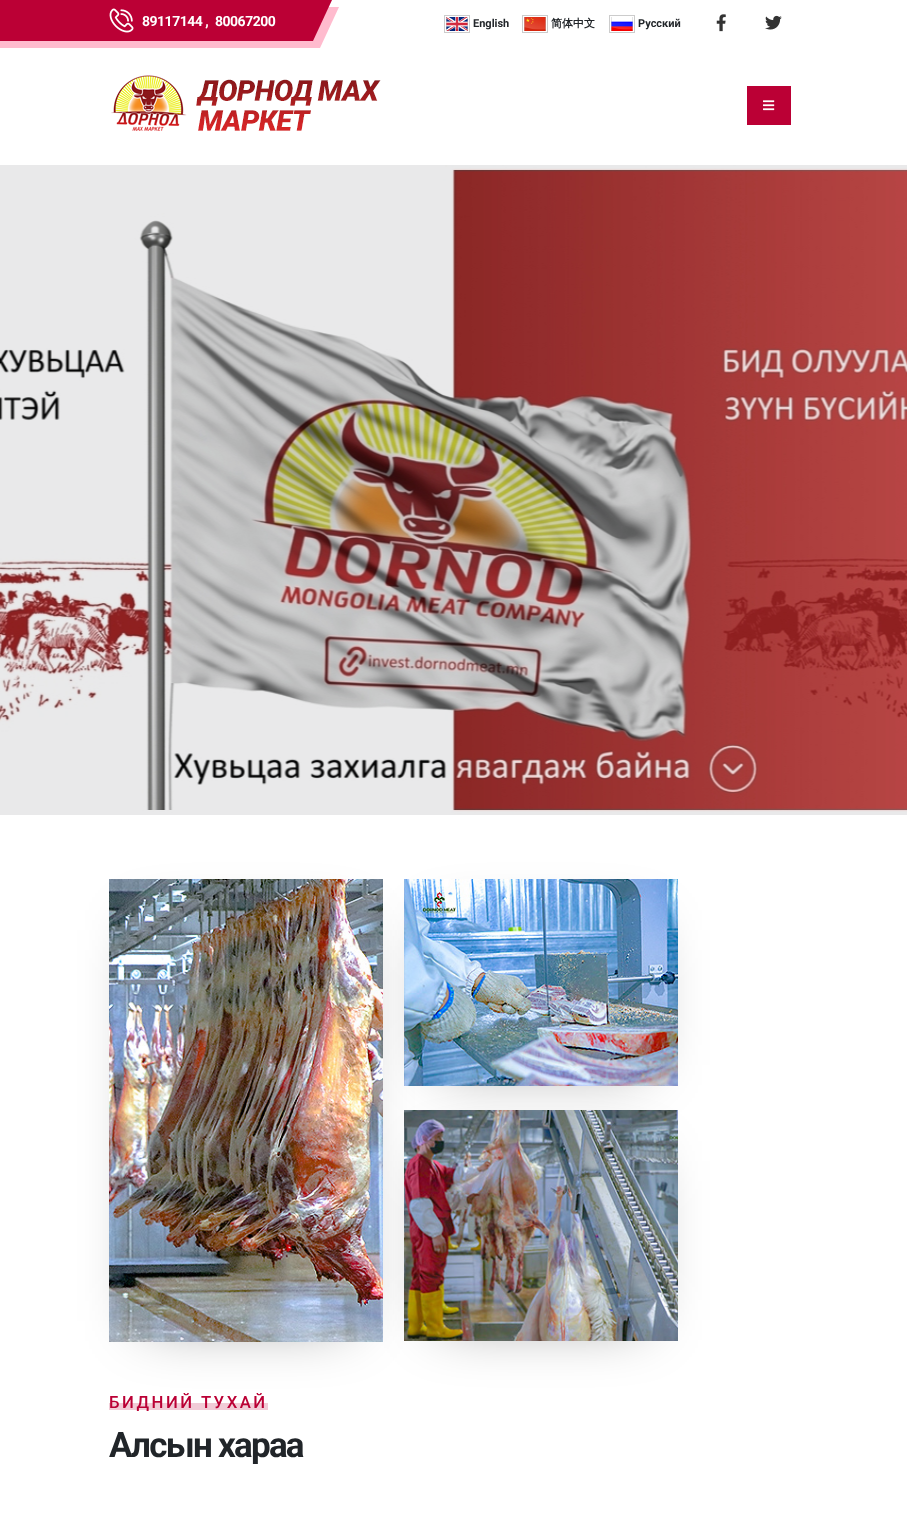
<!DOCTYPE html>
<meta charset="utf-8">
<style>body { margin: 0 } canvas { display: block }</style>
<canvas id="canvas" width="907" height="1517"></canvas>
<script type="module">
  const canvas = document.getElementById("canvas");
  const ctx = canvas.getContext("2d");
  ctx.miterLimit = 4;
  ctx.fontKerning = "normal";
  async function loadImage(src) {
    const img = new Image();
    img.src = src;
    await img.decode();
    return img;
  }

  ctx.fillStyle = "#ffffff";
  ctx.fillRect(0, 0, 907, 1517);
  ctx.fillStyle = "#ffbbce";
  ctx.beginPath();
  ctx.moveTo(-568, 7);
  ctx.lineTo(339, 7);
  ctx.lineTo(320, 48);
  ctx.lineTo(-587, 48);
  ctx.closePath();
  ctx.fill();
  ctx.fillStyle = "#bb0035";
  ctx.beginPath();
  ctx.moveTo(-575, 0);
  ctx.lineTo(332, 0);
  ctx.lineTo(313, 41);
  ctx.lineTo(-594, 41);
  ctx.closePath();
  ctx.fill();
  ctx.drawImage(await loadImage("img1.png"), 109, 8, 25, 25);
  ctx.letterSpacing = "-0.5px";
  ctx.font = "bold 14px Roboto";
  ctx.fillStyle = "#ffffff";
  ctx.fillText("89117144 ,", 142, 26);
  ctx.fillText("80067200", 215, 26);
  ctx.drawImage(await loadImage("img2.png"), 444, 15, 26, 18);
  ctx.letterSpacing = "0px";
  ctx.font = "bold 11px Roboto";
  ctx.fillStyle = "#212529";
  ctx.fillText("English", 473, 27);
  ctx.drawImage(await loadImage("img3.png"), 522, 15, 26, 18);
  ctx.font = "bold 11px WenQuanYi Zen Hei";
  ctx.fillText("简体中文", 551, 27);
  ctx.drawImage(await loadImage("img4.png"), 609, 15, 26, 18);
  ctx.font = "bold 11px Roboto";
  ctx.fillText("Русский", 638, 27);
  ctx.drawImage(await loadImage("img5.png"), 716, 14, 10, 18);
  ctx.drawImage(await loadImage("img6.png"), 765, 15, 17, 15);
  ctx.drawImage(await loadImage("img7.png"), 111, 75, 270, 56);
  ctx.fillStyle = "#bb0035";
  ctx.fillRect(747, 86, 44, 39);
  ctx.drawImage(await loadImage("img8.png"), 763, 100, 12, 11);
  ctx.drawImage(await loadImage("img9.png"), 0, 165, 907, 650);
  ctx.fillStyle = "rgba(0, 0, 0, 0.45)";
  ctx.filter = "blur(30px)";
  ctx.beginPath();
  ctx.rect(145, 930, 202, 391);
  ctx.fill();
  ctx.filter = "none";
  ctx.drawImage(await loadImage("img10.png"), 109, 879, 274, 463);
  ctx.filter = "blur(30px)";
  ctx.beginPath();
  ctx.rect(440, 930, 202, 135);
  ctx.fill();
  ctx.filter = "none";
  ctx.drawImage(await loadImage("img11.png"), 404, 879, 274, 207);
  ctx.filter = "blur(30px)";
  ctx.beginPath();
  ctx.rect(440, 1161, 202, 159);
  ctx.fill();
  ctx.filter = "none";
  ctx.drawImage(await loadImage("img12.png"), 404, 1110, 274, 231);
  ctx.letterSpacing = "2.5px";
  ctx.font = "500 16.75px Roboto";
  ctx.fillStyle = "#bb0035";
  ctx.fillText("БИДНИЙ ТУХАЙ", 109, 1408);
  ctx.fillStyle = "rgba(187, 0, 53, 0.2)";
  ctx.fillRect(109, 1403, 159, 7);
  ctx.letterSpacing = "-1.75px";
  ctx.font = "bold 35px Roboto";
  ctx.fillStyle = "#212529";
  ctx.fillText("Алсын хараа", 109, 1457);
</script>
